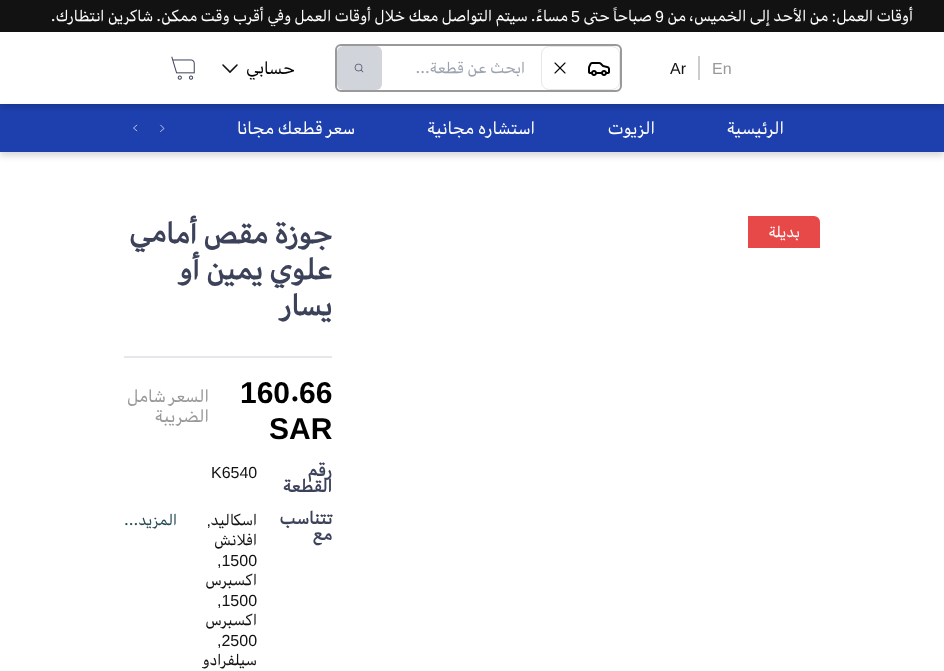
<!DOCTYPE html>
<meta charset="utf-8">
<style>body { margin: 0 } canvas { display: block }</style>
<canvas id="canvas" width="944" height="671"></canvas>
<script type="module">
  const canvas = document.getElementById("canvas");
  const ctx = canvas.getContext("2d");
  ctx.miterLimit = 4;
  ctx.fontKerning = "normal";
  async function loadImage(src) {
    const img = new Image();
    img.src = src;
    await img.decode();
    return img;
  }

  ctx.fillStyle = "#ffffff";
  ctx.fillRect(0, 0, 944, 671);
  ctx.fillStyle = "rgba(0, 0, 0, 0.15)";
  ctx.filter = "blur(3px)";
  ctx.beginPath();
  ctx.rect(0, 108, 944, 48);
  ctx.fill();
  ctx.filter = "none";
  ctx.fillStyle = "#1e40af";
  ctx.fillRect(0, 104, 944, 48);
  ctx.save();
  ctx.beginPath();
  ctx.rect(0, 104, 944, 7);
  ctx.clip();
  ctx.fillStyle = "rgba(0, 0, 0, 0.15)";
  ctx.filter = "blur(3px)";
  ctx.beginPath();
  ctx.rect(0, 4, 944, 104);
  ctx.fill();
  ctx.filter = "none";
  ctx.restore();
  ctx.fillStyle = "#121212";
  ctx.fillRect(0, 0, 944, 32);
  ctx.direction = "rtl";
  ctx.font = "16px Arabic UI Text";
  ctx.fillStyle = "#fefefe";
  ctx.fillText("أوقات العمل: من الأحد إلى الخميس، من", 913, 22);
  ctx.direction = "ltr";
  ctx.font = "16px Liberation Sans";
  ctx.fillText("9", 655, 22);
  ctx.direction = "rtl";
  ctx.font = "16px Arabic UI Text";
  ctx.fillText("صباحاً حتى", 652, 22);
  ctx.direction = "ltr";
  ctx.font = "16px Liberation Sans";
  ctx.fillText("5", 571, 22);
  ctx.direction = "rtl";
  ctx.font = "16px Arabic UI Text";
  ctx.fillText("مساءً. سيتم التواصل معك خلال أوقات العمل وفي أقرب وقت ممكن. شاكرين انتظارك.", 568, 22);
  ctx.direction = "ltr";
  ctx.font = "16px Liberation Sans";
  ctx.fillStyle = "#999999";
  ctx.fillText("En", 712, 74);
  ctx.fillStyle = "#cccccc";
  ctx.fillRect(698, 56, 2, 24);
  ctx.fillStyle = "#121212";
  ctx.fillText("Ar", 670, 74);
  ctx.beginPath();
  ctx.roundRect(336, 45, 285, 46, 5);
  ctx.strokeStyle = "#999999";
  ctx.lineWidth = 2;
  ctx.stroke();
  ctx.beginPath();
  ctx.roundRect(541.5, 46.5, 78, 43, 7.5);
  ctx.strokeStyle = "#e5e7eb";
  ctx.lineWidth = 1;
  ctx.stroke();
  ctx.drawImage(await loadImage("img1.png"), 588, 62, 22, 14);
  ctx.drawImage(await loadImage("img2.png"), 554, 62, 12, 12);
  ctx.direction = "rtl";
  ctx.font = "16px Arabic UI Text";
  ctx.fillStyle = "#9ca3af";
  ctx.fillText("ابحث عن قطعة...", 525, 74);
  ctx.fillStyle = "#d1d5db";
  ctx.beginPath();
  ctx.roundRect(337, 46, 45, 44, 6);
  ctx.fill();
  ctx.drawImage(await loadImage("img3.png"), 354, 63, 10, 10);
  ctx.font = "18px Arabic UI Text";
  ctx.fillStyle = "#000000";
  ctx.fillText("حسابي", 295, 75);
  ctx.beginPath();
  ctx.moveTo(237, 65);
  ctx.lineTo(230, 72);
  ctx.lineTo(223, 65);
  ctx.strokeStyle = "#121212";
  ctx.lineWidth = 1.6;
  ctx.lineCap = "round";
  ctx.stroke();
  ctx.drawImage(await loadImage("img4.png"), 171, 56, 24, 24);
  ctx.fillStyle = "#fefefe";
  ctx.fillText("الرئيسية", 784, 135);
  ctx.fillText("الزيوت", 655, 135);
  ctx.fillText("استشاره مجانية", 535, 135);
  ctx.fillText("سعر قطعك مجانا", 355, 135);
  ctx.save();
  ctx.beginPath();
  ctx.moveTo(165.5, 124.5);
  ctx.lineTo(165.5, 132);
  ctx.lineTo(159, 132);
  ctx.lineTo(159, 124.5);
  ctx.closePath();
  ctx.clip();
  ctx.beginPath();
  ctx.moveTo(160.5, 125);
  ctx.lineTo(164, 128.5);
  ctx.lineTo(160.5, 131.5);
  ctx.strokeStyle = "#fefefe";
  ctx.lineWidth = 0.7;
  ctx.stroke();
  ctx.restore();
  ctx.save();
  ctx.beginPath();
  ctx.moveTo(132, 131.5);
  ctx.lineTo(132, 124.5);
  ctx.lineTo(138.5, 124.5);
  ctx.lineTo(138.5, 131.5);
  ctx.closePath();
  ctx.clip();
  ctx.beginPath();
  ctx.moveTo(137, 131);
  ctx.lineTo(133.5, 128);
  ctx.lineTo(137, 125);
  ctx.strokeStyle = "#fefefe";
  ctx.lineWidth = 0.7;
  ctx.stroke();
  ctx.restore();
  ctx.fillStyle = "#e74949";
  ctx.beginPath();
  ctx.roundRect(748, 216, 72, 32, [0, 6, 0, 0]);
  ctx.fill();
  ctx.font = "16px Arabic UI Text";
  ctx.fillStyle = "#fefefe";
  ctx.fillText("بديلة", 800, 238);
  ctx.font = "bold 30px Arabic UI Text";
  ctx.fillStyle = "#3c425a";
  ctx.fillText("جوزة مقص أمامي", 332, 245);
  ctx.fillText("علوي يمين أو", 332, 281);
  ctx.fillText("يسار", 332, 317);
  ctx.fillStyle = "#e5e7eb";
  ctx.fillRect(124, 356, 208, 2);
  ctx.direction = "ltr";
  ctx.font = "bold 30px Liberation Sans";
  ctx.fillStyle = "#000000";
  ctx.fillText("66", 299, 403);
  ctx.font = "bold 30px Arabic UI Text";
  ctx.fillText(".", 290, 403);
  ctx.font = "bold 30px Liberation Sans";
  ctx.fillText("160", 240, 403);
  ctx.fillText("SAR", 269, 439);
  ctx.direction = "rtl";
  ctx.font = "18px Arabic UI Text";
  ctx.fillStyle = "#999999";
  ctx.fillText("السعر شامل", 209, 403);
  ctx.fillText("الضريبة", 209, 423);
  ctx.font = "bold 18px Arabic UI Text";
  ctx.fillStyle = "#3c425a";
  ctx.fillText("رقم", 332, 477);
  ctx.fillText("القطعة", 332, 493);
  ctx.direction = "ltr";
  ctx.font = "16px Liberation Sans";
  ctx.fillStyle = "#121212";
  ctx.fillText("K6540", 211, 478);
  ctx.direction = "rtl";
  ctx.font = "bold 18px Arabic UI Text";
  ctx.fillStyle = "#3c425a";
  ctx.fillText("تتناسب", 332, 525);
  ctx.fillText("مع", 332, 541);
  ctx.font = "16px Arabic UI Text";
  ctx.fillStyle = "#121212";
  ctx.fillText("اسكاليد", 257, 526);
  ctx.font = "16px Liberation Sans";
  ctx.fillText(",", 211, 526);
  ctx.font = "16px Arabic UI Text";
  ctx.fillText("افلانش", 257, 546);
  ctx.direction = "ltr";
  ctx.font = "16px Liberation Sans";
  ctx.fillText(",1500", 217, 566);
  ctx.direction = "rtl";
  ctx.font = "16px Arabic UI Text";
  ctx.fillText("اكسبرس", 257, 586);
  ctx.direction = "ltr";
  ctx.font = "16px Liberation Sans";
  ctx.fillText(",1500", 217, 606);
  ctx.direction = "rtl";
  ctx.font = "16px Arabic UI Text";
  ctx.fillText("اكسبرس", 257, 626);
  ctx.direction = "ltr";
  ctx.font = "16px Liberation Sans";
  ctx.fillText(",2500", 217, 646);
  ctx.direction = "rtl";
  ctx.font = "16px Arabic UI Text";
  ctx.fillText("سيلفرادو", 257, 666);
  ctx.fillStyle = "#254a55";
  ctx.fillText("المزيد...", 177, 526);
</script>
